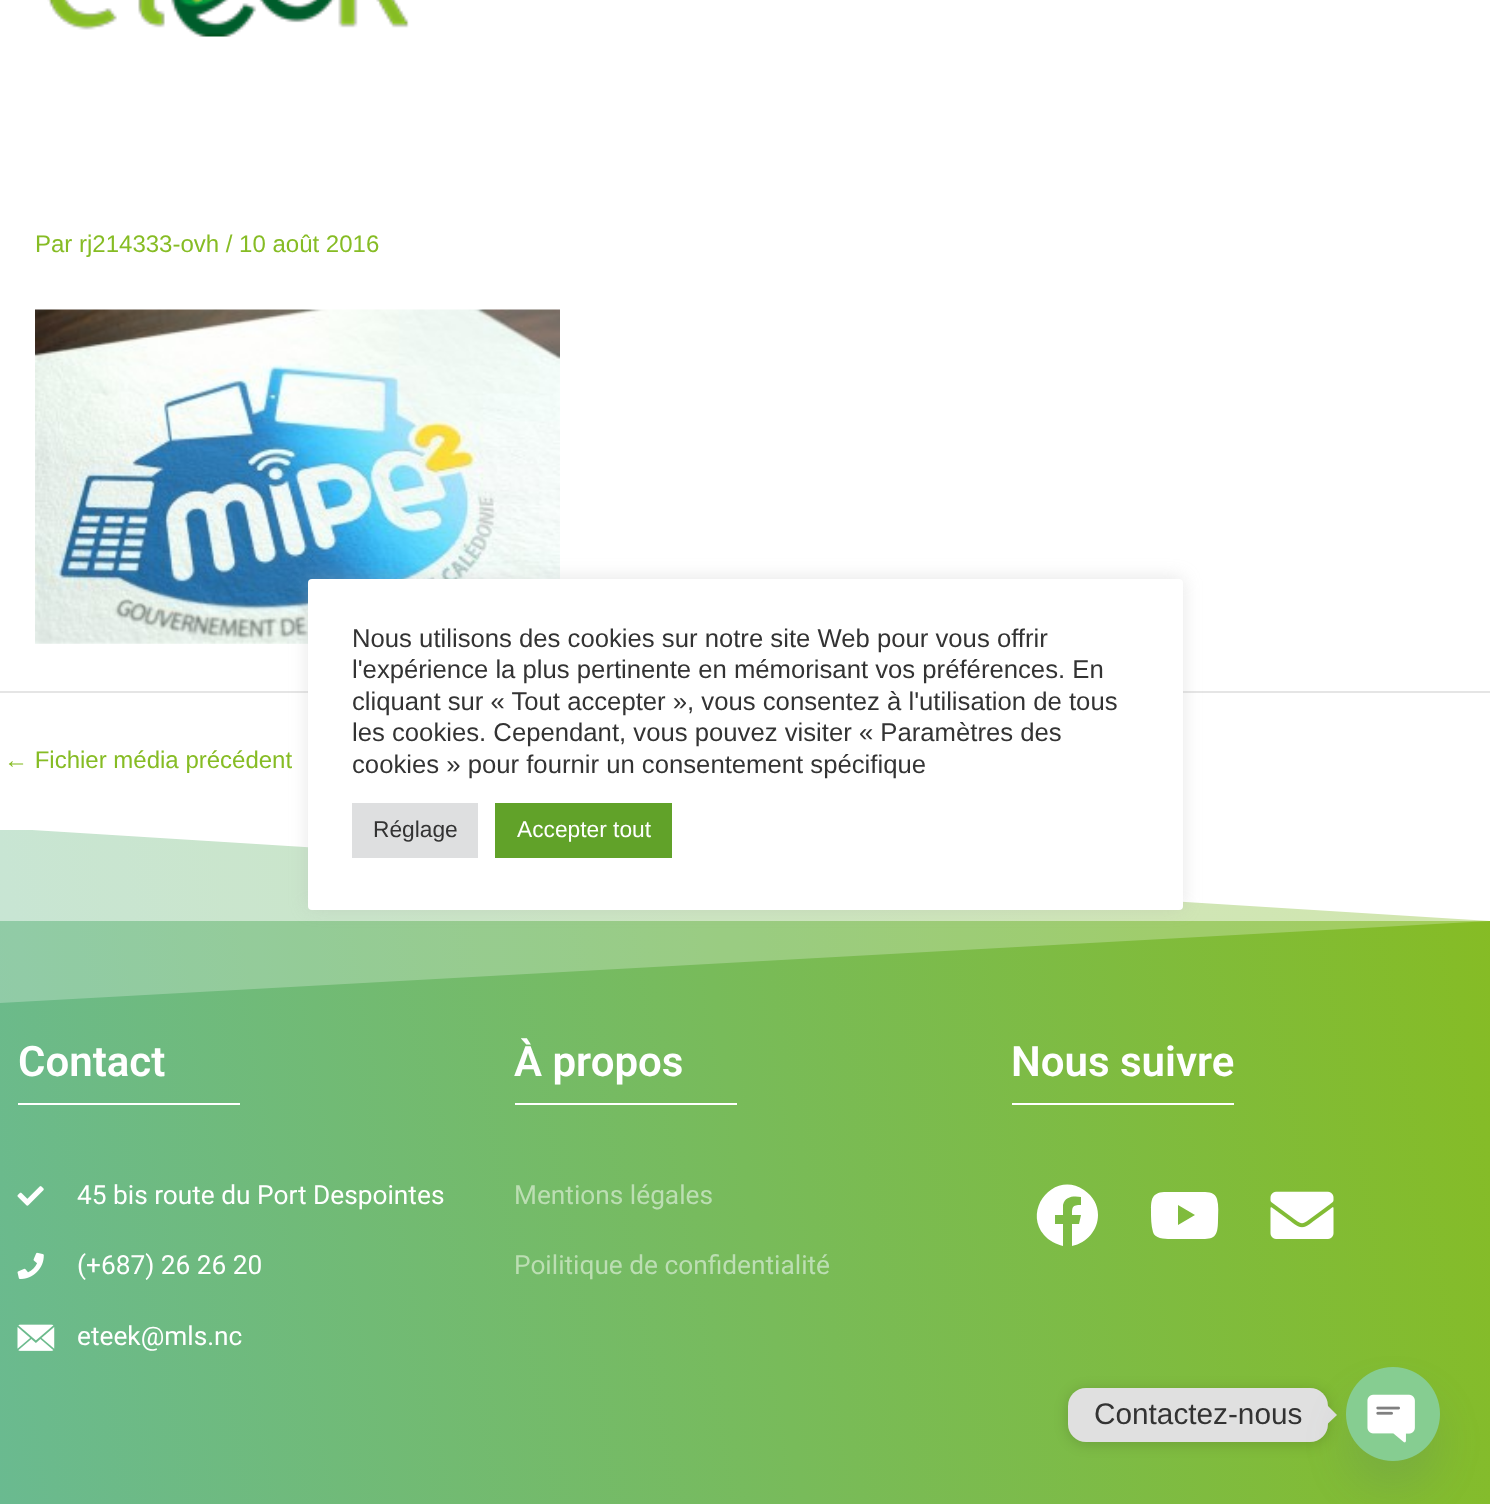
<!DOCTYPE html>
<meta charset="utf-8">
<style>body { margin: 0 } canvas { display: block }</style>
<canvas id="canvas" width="1490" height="1504"></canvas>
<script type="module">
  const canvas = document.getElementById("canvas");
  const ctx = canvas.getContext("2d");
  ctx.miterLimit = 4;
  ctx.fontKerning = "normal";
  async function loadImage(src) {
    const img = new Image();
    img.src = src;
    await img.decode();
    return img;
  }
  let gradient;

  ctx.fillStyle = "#ffffff";
  ctx.fillRect(0, 0, 1490, 1504);
  ctx.drawImage(await loadImage("img1.png"), 47, 0, 362, 37);
  ctx.font = "24px Liberation Sans";
  ctx.fillStyle = "#86bc24";
  ctx.fillText("Par rj214333-ovh / 10 août 2016", 35, 252);
  ctx.drawImage(await loadImage("img2.png"), 35, 309, 525, 335);
  ctx.fillStyle = "#e5e5e5";
  ctx.fillRect(0, 691, 1490, 2);
  ctx.fillStyle = "#86bc24";
  ctx.fillText("← Fichier média précédent", 4, 768);
  gradient = ctx.createLinearGradient(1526, 1030, -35, 1305);
  gradient.addColorStop(0, "#86bc24");
  gradient.addColorStop(1, "#6aba90");
  ctx.fillStyle = gradient;
  ctx.fillRect(0, 921, 1490, 583);
  gradient = ctx.createLinearGradient(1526, 1030, -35, 1305);
  gradient.addColorStop(0, "#c3de92");
  gradient.addColorStop(1, "#b5ddc8");
  ctx.fillStyle = gradient;
  ctx.fillRect(0, 830, 1490, 91);
  ctx.fillStyle = "#ffffff";
  ctx.beginPath();
  ctx.moveTo(-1, 828);
  ctx.lineTo(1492, 828);
  ctx.lineTo(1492, 921);
  ctx.closePath();
  ctx.fill();
  ctx.fillStyle = "rgba(255, 255, 255, 0.25)";
  ctx.beginPath();
  ctx.moveTo(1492, 828);
  ctx.lineTo(-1, 828);
  ctx.lineTo(-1, 1003);
  ctx.lineTo(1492, 921);
  ctx.closePath();
  ctx.fill();
  ctx.font = "600 42px Roboto";
  ctx.fillStyle = "#ffffff";
  ctx.fillText("Contact", 18, 1076);
  ctx.fillRect(18, 1103, 222, 2);
  ctx.drawImage(await loadImage("img3.png"), 17, 1186, 27, 20);
  ctx.font = "26.25px Roboto";
  ctx.fillText("45 bis route du Port Despointes", 77, 1204);
  ctx.drawImage(await loadImage("img4.png"), 17, 1252, 27, 27);
  ctx.fillText("(+687) 26 26 20", 77, 1274);
  ctx.drawImage(await loadImage("img5.png"), 17, 1324, 38, 27);
  ctx.fillText("eteek@mls.nc", 77, 1345);
  ctx.font = "600 42px Roboto";
  ctx.fillText("À propos", 514, 1076);
  ctx.fillRect(515, 1103, 222, 2);
  ctx.font = "26.25px Roboto";
  ctx.fillStyle = "#bcdeb3";
  ctx.fillText("Mentions légales", 514, 1204);
  ctx.fillText("Poilitique de confidentialité", 514, 1274);
  ctx.font = "600 42px Roboto";
  ctx.fillStyle = "#ffffff";
  ctx.fillText("Nous suivre", 1011, 1076);
  ctx.fillRect(1012, 1103, 222, 2);
  ctx.beginPath();
  ctx.moveTo(1098, 1215);
  ctx.bezierCurveTo(1098, 1230, 1087, 1243, 1072, 1246);
  ctx.lineTo(1072, 1224);
  ctx.lineTo(1079, 1224);
  ctx.lineTo(1081, 1215);
  ctx.lineTo(1072, 1215);
  ctx.bezierCurveTo(1072, 1207, 1072, 1205, 1081, 1205);
  ctx.lineTo(1081, 1197);
  ctx.bezierCurveTo(1074, 1196, 1065, 1196, 1063, 1205);
  ctx.lineTo(1063, 1215);
  ctx.lineTo(1055, 1215);
  ctx.lineTo(1055, 1224);
  ctx.lineTo(1063, 1224);
  ctx.lineTo(1063, 1246);
  ctx.bezierCurveTo(1056, 1244, 1049, 1241, 1044, 1235);
  ctx.bezierCurveTo(1022, 1209, 1055, 1170, 1084, 1190);
  ctx.bezierCurveTo(1093, 1196, 1098, 1205, 1098, 1215);
  ctx.closePath();
  ctx.fill();
  ctx.beginPath();
  ctx.moveTo(1217, 1199);
  ctx.bezierCurveTo(1219, 1206, 1218, 1213, 1218, 1220);
  ctx.bezierCurveTo(1218, 1241, 1212, 1239, 1192, 1239);
  ctx.lineTo(1175, 1239);
  ctx.bezierCurveTo(1169, 1239, 1155, 1240, 1153, 1232);
  ctx.bezierCurveTo(1151, 1225, 1151, 1218, 1151, 1211);
  ctx.bezierCurveTo(1151, 1199, 1152, 1193, 1164, 1192);
  ctx.lineTo(1179, 1192);
  ctx.lineTo(1199, 1192);
  ctx.bezierCurveTo(1205, 1192, 1215, 1191, 1217, 1199);
  ctx.closePath();
  ctx.moveTo(1178, 1225);
  ctx.lineTo(1195, 1215);
  ctx.lineTo(1178, 1205);
  ctx.closePath();
  ctx.fill();
  ctx.drawImage(await loadImage("img6.png"), 1270, 1191, 64, 48);
  ctx.fillStyle = "rgba(172, 171, 171, 0.3)";
  ctx.filter = "blur(9px)";
  ctx.beginPath();
  ctx.roundRect(308, 578, 875, 330, 4);
  ctx.fill();
  ctx.filter = "none";
  ctx.fillStyle = "#ffffff";
  ctx.beginPath();
  ctx.roundRect(308, 579, 875, 331, 4);
  ctx.fill();
  ctx.font = "25.7px Liberation Sans";
  ctx.fillStyle = "#333333";
  ctx.fillText("Nous utilisons des cookies sur notre site Web pour vous offrir", 352, 647);
  ctx.fillText("l'expérience la plus pertinente en mémorisant vos préférences. En", 352, 678);
  ctx.fillText("cliquant sur « Tout accepter », vous consentez à l'utilisation de tous", 352, 710);
  ctx.fillText("les cookies. Cependant, vous pouvez visiter « Paramètres des", 352, 741);
  ctx.fillText("cookies » pour fournir un consentement spécifique", 352, 773);
  ctx.fillStyle = "#dedfe0";
  ctx.fillRect(352, 803, 126, 55);
  ctx.font = "22.75px Liberation Sans";
  ctx.fillStyle = "#333333";
  ctx.fillText("Réglage", 373, 837);
  ctx.fillStyle = "#61a229";
  ctx.fillRect(495, 803, 177, 55);
  ctx.fillStyle = "#ffffff";
  ctx.fillText("Accepter tout", 517, 837);
  ctx.fillStyle = "rgba(0, 0, 0, 0.15)";
  ctx.filter = "blur(7px)";
  ctx.beginPath();
  ctx.roundRect(1068, 1390, 260, 54, 18);
  ctx.fill();
  ctx.filter = "none";
  ctx.fillStyle = "#e0e0e0";
  ctx.beginPath();
  ctx.roundRect(1068, 1388, 260, 54, 18);
  ctx.fill();
  ctx.font = "29.75px Liberation Sans";
  ctx.fillStyle = "#333333";
  ctx.fillText("Contactez-nous", 1094, 1424);
  ctx.fillStyle = "#e0e0e0";
  ctx.beginPath();
  ctx.moveTo(1328, 1423.5);
  ctx.lineTo(1328, 1406);
  ctx.lineTo(1337, 1415);
  ctx.closePath();
  ctx.fill();
  ctx.fillStyle = "rgba(73, 104, 126, 0.16)";
  ctx.filter = "blur(21px)";
  ctx.beginPath();
  ctx.roundRect(1346, 1395, 94, 94, 47);
  ctx.fill();
  ctx.filter = "none";
  ctx.drawImage(await loadImage("img7.png"), 1346, 1367, 94, 94);
</script>
